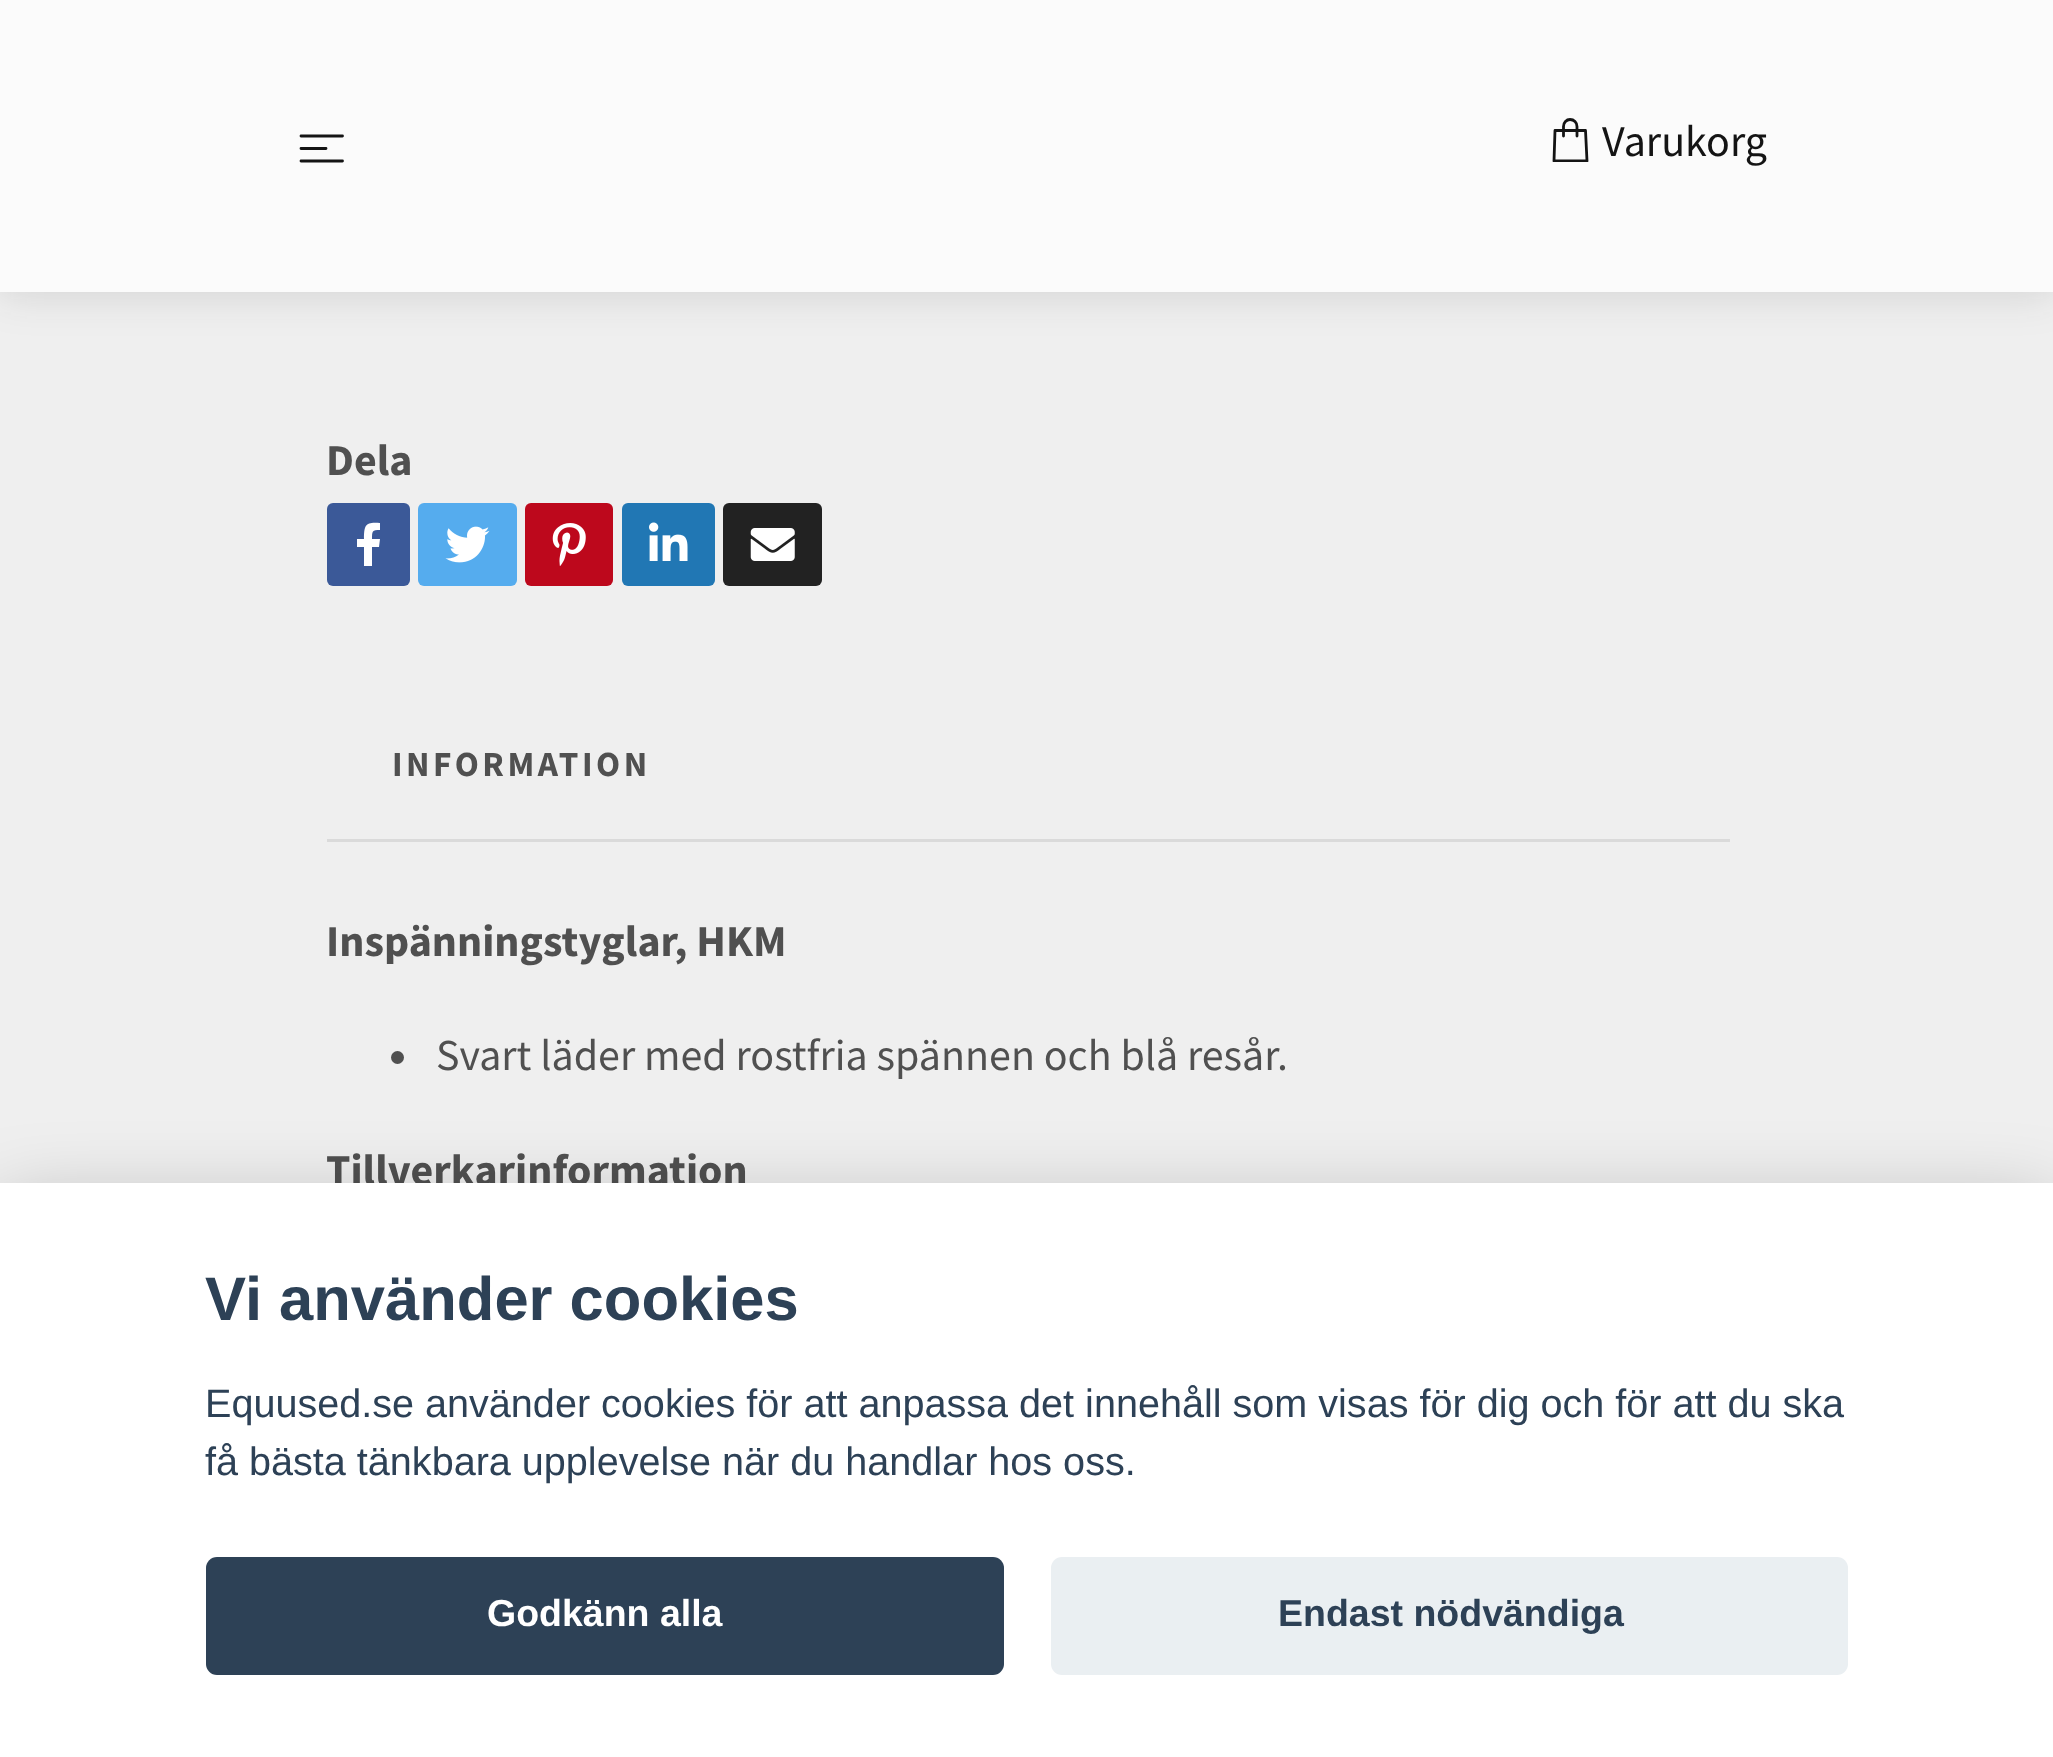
<!DOCTYPE html>
<meta charset="utf-8">
<style>body { margin: 0 } canvas { display: block }</style>
<canvas id="canvas" width="2053" height="1757"></canvas>
<script type="module">
  const canvas = document.getElementById("canvas");
  const ctx = canvas.getContext("2d");
  ctx.miterLimit = 4;
  ctx.fontKerning = "normal";
  async function loadImage(src) {
    const img = new Image();
    img.src = src;
    await img.decode();
    return img;
  }

  ctx.fillStyle = "#efefef";
  ctx.fillRect(0, 0, 2053, 1757);
  ctx.fillStyle = "rgba(34, 34, 34, 0.15)";
  ctx.filter = "blur(22px)";
  ctx.beginPath();
  ctx.rect(0, 0, 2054, 292);
  ctx.fill();
  ctx.filter = "none";
  ctx.fillStyle = "#fbfbfb";
  ctx.fillRect(0, 0, 2053, 292);
  ctx.beginPath();
  ctx.moveTo(301, 136);
  ctx.lineTo(342.5, 136);
  ctx.moveTo(301, 148.5);
  ctx.lineTo(326, 148.5);
  ctx.moveTo(301, 161);
  ctx.lineTo(342.5, 161);
  ctx.strokeStyle = "#141414";
  ctx.lineWidth = 2.8;
  ctx.lineCap = "round";
  ctx.lineJoin = "round";
  ctx.stroke();
  ctx.save();
  ctx.beginPath();
  ctx.rect(1537, 118, 66, 44);
  ctx.clip();
  ctx.beginPath();
  ctx.moveTo(1587, 161);
  ctx.lineTo(1554, 161);
  ctx.lineTo(1555, 130.5);
  ctx.lineTo(1585.5, 130.5);
  ctx.closePath();
  ctx.stroke();
  ctx.restore();
  ctx.beginPath();
  ctx.moveTo(1563.5, 136);
  ctx.lineTo(1563.5, 126.5);
  ctx.bezierCurveTo(1563.5, 122.5, 1566.5, 119.5, 1570, 119.5);
  ctx.bezierCurveTo(1574, 119.5, 1577, 122.5, 1577, 126.5);
  ctx.lineTo(1577, 136);
  ctx.stroke();
  ctx.font = "44px Source Sans Pro";
  ctx.fillStyle = "#141414";
  ctx.fillText("Varukorg", 1602, 156);
  ctx.font = "bold 44px Source Sans Pro";
  ctx.fillStyle = "#505050";
  ctx.fillText("Dela", 326, 475);
  ctx.fillStyle = "#3b5998";
  ctx.beginPath();
  ctx.roundRect(327, 503, 83, 83, 6);
  ctx.fill();
  ctx.fillStyle = "#ffffff";
  ctx.beginPath();
  ctx.moveTo(379, 547);
  ctx.lineTo(372, 547);
  ctx.lineTo(372, 566);
  ctx.lineTo(364, 566);
  ctx.lineTo(364, 547);
  ctx.lineTo(357, 547);
  ctx.lineTo(357, 539);
  ctx.lineTo(364, 539);
  ctx.bezierCurveTo(364, 524, 366, 522, 380, 523);
  ctx.lineTo(380, 530);
  ctx.bezierCurveTo(372, 530, 372, 531, 372, 539);
  ctx.lineTo(380, 539);
  ctx.closePath();
  ctx.fill();
  ctx.fillStyle = "#55acee";
  ctx.beginPath();
  ctx.roundRect(418, 503, 99, 83, 6);
  ctx.fill();
  ctx.drawImage(await loadImage("img1.png"), 445, 526, 45, 37);
  ctx.fillStyle = "#bd081c";
  ctx.beginPath();
  ctx.roundRect(525, 503, 88, 83, 6);
  ctx.fill();
  ctx.drawImage(await loadImage("img2.png"), 552, 523, 34, 43);
  ctx.fillStyle = "#2177b4";
  ctx.beginPath();
  ctx.roundRect(622, 503, 93, 83, 6);
  ctx.fill();
  ctx.drawImage(await loadImage("img3.png"), 649, 522, 39, 39);
  ctx.fillStyle = "#222222";
  ctx.beginPath();
  ctx.roundRect(723, 503, 99, 83, 6);
  ctx.fill();
  ctx.drawImage(await loadImage("img4.png"), 750, 528, 45, 33);
  ctx.fillStyle = "#dadada";
  ctx.fillRect(327, 839, 1403, 3);
  ctx.letterSpacing = "3.5px";
  ctx.font = "bold 35.25px Source Sans Pro";
  ctx.fillStyle = "#505050";
  ctx.fillText("INFORMATION", 392, 776);
  ctx.letterSpacing = "0px";
  ctx.font = "bold 44px Source Sans Pro";
  ctx.fillText("Inspänningstyglar, HKM", 326, 956);
  ctx.beginPath();
  ctx.arc(397.5, 1057.5, 6.5, 0, Math.PI * 2);
  ctx.fill();
  ctx.font = "44px Source Sans Pro";
  ctx.fillText("Svart läder med rostfria spännen och blå resår.", 436, 1070);
  ctx.font = "bold 44px Source Sans Pro";
  ctx.fillText("Tillverkarinformation", 326, 1185);
  ctx.fillStyle = "rgba(2, 2, 3, 0.28)";
  ctx.filter = "blur(41px)";
  ctx.beginPath();
  ctx.rect(0, 1210, 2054, 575);
  ctx.fill();
  ctx.filter = "none";
  ctx.fillStyle = "#ffffff";
  ctx.fillRect(0, 1183, 2053, 574);
  ctx.font = "bold 61.5px Liberation Sans";
  ctx.fillStyle = "#2d4156";
  ctx.fillText("Vi använder cookies", 205, 1320);
  ctx.font = "39.6px Liberation Sans";
  ctx.fillText("Equused.se använder cookies för att anpassa det innehåll som visas för dig och för att du ska", 205, 1417);
  ctx.fillText("få bästa tänkbara upplevelse när du handlar hos oss.", 205, 1475);
  ctx.beginPath();
  ctx.roundRect(206, 1557, 798, 118, 11);
  ctx.fill();
  ctx.font = "bold 37.5px Liberation Sans";
  ctx.fillStyle = "#ffffff";
  ctx.fillText("Godkänn alla", 487, 1626);
  ctx.fillStyle = "#eaeff2";
  ctx.beginPath();
  ctx.roundRect(1051, 1557, 797, 118, 11);
  ctx.fill();
  ctx.fillStyle = "#2d4156";
  ctx.fillText("Endast nödvändiga", 1278, 1626);
</script>
